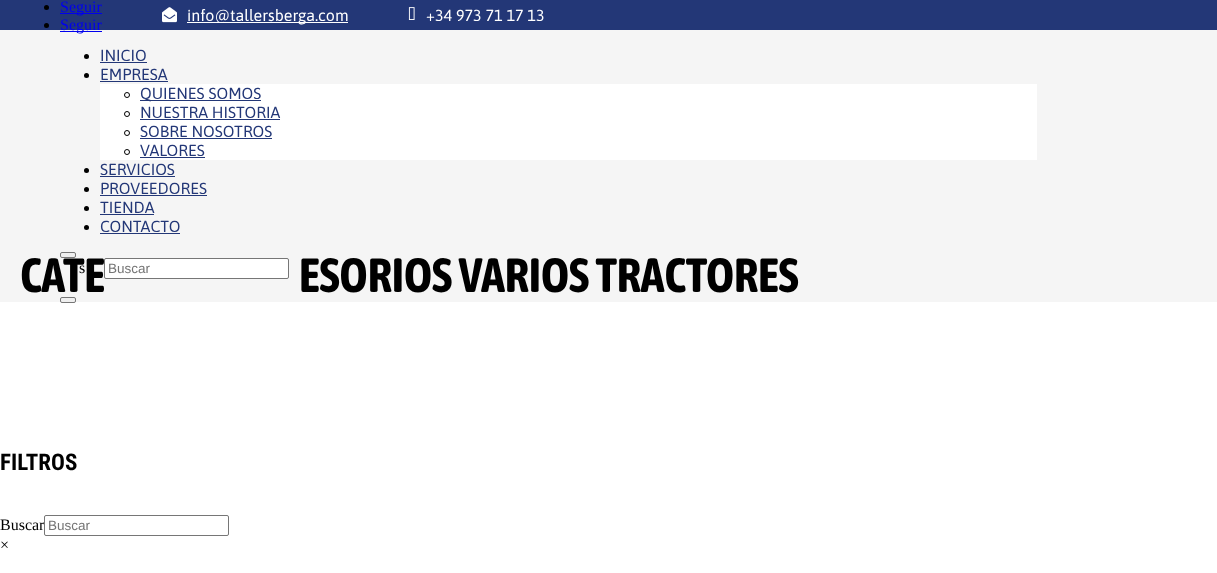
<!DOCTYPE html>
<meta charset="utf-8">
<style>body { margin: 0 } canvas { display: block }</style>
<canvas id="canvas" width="1217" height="573"></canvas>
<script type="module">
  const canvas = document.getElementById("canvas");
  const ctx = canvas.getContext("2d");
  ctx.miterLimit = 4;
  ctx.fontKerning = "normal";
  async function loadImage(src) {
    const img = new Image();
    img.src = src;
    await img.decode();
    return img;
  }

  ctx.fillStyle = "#ffffff";
  ctx.fillRect(0, 0, 1217, 573);
  ctx.fillStyle = "#233777";
  ctx.fillRect(0, 0, 1217, 30);
  ctx.fillStyle = "#000000";
  ctx.beginPath();
  ctx.arc(46.5, 7.5, 2.5, 0, Math.PI * 2);
  ctx.fill();
  ctx.fillStyle = "#0000ee";
  ctx.fillRect(60, 13, 42, 1);
  ctx.font = "16px Liberation Serif";
  ctx.fillText("Seguir", 60, 12);
  ctx.fillStyle = "#000000";
  ctx.beginPath();
  ctx.arc(46.5, 25.5, 2.5, 0, Math.PI * 2);
  ctx.fill();
  ctx.fillStyle = "#f5f5f5";
  ctx.fillRect(0, 30, 1217, 272);
  ctx.fillStyle = "#0000ee";
  ctx.fillRect(60, 31, 42, 1);
  ctx.fillText("Seguir", 60, 30);
  ctx.drawImage(await loadImage("img1.png"), 162, 7, 15, 16);
  ctx.fillStyle = "#ffffff";
  ctx.fillRect(187, 22, 161, 1);
  ctx.font = "16px Asap";
  ctx.fillText("info@tallersberga.com", 187, 21);
  ctx.drawImage(await loadImage("img2.png"), 408, 7, 7, 13);
  ctx.fillText("+34 973 71 17 13", 426, 21);
  ctx.fillStyle = "#000000";
  ctx.beginPath();
  ctx.arc(86.5, 56.5, 2.5, 0, Math.PI * 2);
  ctx.fill();
  ctx.fillStyle = "#233777";
  ctx.fillText("INICIO", 100, 61);
  ctx.fillRect(100, 62, 47, 1);
  ctx.fillStyle = "#000000";
  ctx.beginPath();
  ctx.arc(86.5, 75.5, 2.5, 0, Math.PI * 2);
  ctx.fill();
  ctx.fillStyle = "#233777";
  ctx.fillText("EMPRESA", 100, 80);
  ctx.fillRect(100, 81, 68, 1);
  ctx.fillStyle = "#ffffff";
  ctx.fillRect(100, 84, 937, 76);
  ctx.beginPath();
  ctx.arc(127, 95, 2.5, 0, Math.PI * 2);
  ctx.strokeStyle = "#000000";
  ctx.stroke();
  ctx.fillStyle = "#233777";
  ctx.fillRect(140, 100, 121, 1);
  ctx.fillText("QUIENES SOMOS", 140, 99);
  ctx.beginPath();
  ctx.arc(127, 114, 2.5, 0, Math.PI * 2);
  ctx.stroke();
  ctx.fillText("NUESTRA HISTORIA", 140, 118);
  ctx.fillRect(140, 119, 140, 1);
  ctx.beginPath();
  ctx.arc(127, 133, 2.5, 0, Math.PI * 2);
  ctx.stroke();
  ctx.fillText("SOBRE NOSOTROS", 140, 137);
  ctx.fillRect(140, 138, 132, 1);
  ctx.beginPath();
  ctx.arc(127, 152, 2.5, 0, Math.PI * 2);
  ctx.stroke();
  ctx.fillText("VALORES", 140, 156);
  ctx.fillRect(140, 157, 65, 1);
  ctx.fillStyle = "#000000";
  ctx.beginPath();
  ctx.arc(86.5, 170.5, 2.5, 0, Math.PI * 2);
  ctx.fill();
  ctx.fillStyle = "#233777";
  ctx.fillText("SERVICIOS", 100, 175);
  ctx.fillRect(100, 176, 75, 1);
  ctx.fillStyle = "#000000";
  ctx.beginPath();
  ctx.arc(86.5, 189.5, 2.5, 0, Math.PI * 2);
  ctx.fill();
  ctx.fillStyle = "#233777";
  ctx.fillText("PROVEEDORES", 100, 194);
  ctx.fillRect(100, 195, 107, 1);
  ctx.fillStyle = "#000000";
  ctx.beginPath();
  ctx.arc(86.5, 208.5, 2.5, 0, Math.PI * 2);
  ctx.fill();
  ctx.fillStyle = "#233777";
  ctx.fillText("TIENDA", 100, 213);
  ctx.fillRect(100, 214, 54, 1);
  ctx.fillStyle = "#000000";
  ctx.beginPath();
  ctx.arc(86.5, 227.5, 2.5, 0, Math.PI * 2);
  ctx.fill();
  ctx.fillStyle = "#233777";
  ctx.fillText("CONTACTO", 100, 232);
  ctx.fillRect(100, 233, 80, 1);
  ctx.fillStyle = "#efefef";
  ctx.beginPath();
  ctx.roundRect(60.5, 252.5, 15, 5, 1.5);
  ctx.fill();
  ctx.strokeStyle = "#767676";
  ctx.stroke();
  ctx.font = "bold 48px Asap Condensed";
  ctx.fillStyle = "#000000";
  ctx.fillText("CATE", 20, 292);
  ctx.font = "16px Liberation Serif";
  ctx.fillText("s", 79, 273);
  ctx.fillStyle = "#ffffff";
  ctx.beginPath();
  ctx.roundRect(104.5, 258.5, 184, 20, 1.5);
  ctx.fill();
  ctx.stroke();
  ctx.font = "13.5px Liberation Sans";
  ctx.fillStyle = "#757575";
  ctx.fillText("Buscar", 108, 273);
  ctx.fillStyle = "#efefef";
  ctx.beginPath();
  ctx.roundRect(60.5, 297.5, 15, 5, 1.5);
  ctx.fill();
  ctx.stroke();
  ctx.font = "bold 48px Asap Condensed";
  ctx.fillStyle = "#000000";
  ctx.fillText("ESORIOS VARIOS TRACTORES", 299, 292);
  ctx.font = "bold 23px Roboto Condensed";
  ctx.fillText("FILTROS", 0, 470);
  ctx.font = "16px Liberation Serif";
  ctx.fillText("Buscar", 0, 530);
  ctx.fillStyle = "#ffffff";
  ctx.beginPath();
  ctx.roundRect(44.5, 515.5, 184, 20, 1.5);
  ctx.fill();
  ctx.stroke();
  ctx.font = "13.5px Liberation Sans";
  ctx.fillStyle = "#757575";
  ctx.fillText("Buscar", 48, 530);
  ctx.font = "16px Liberation Serif";
  ctx.fillStyle = "#000000";
  ctx.fillText("×", 0, 550);
</script>
